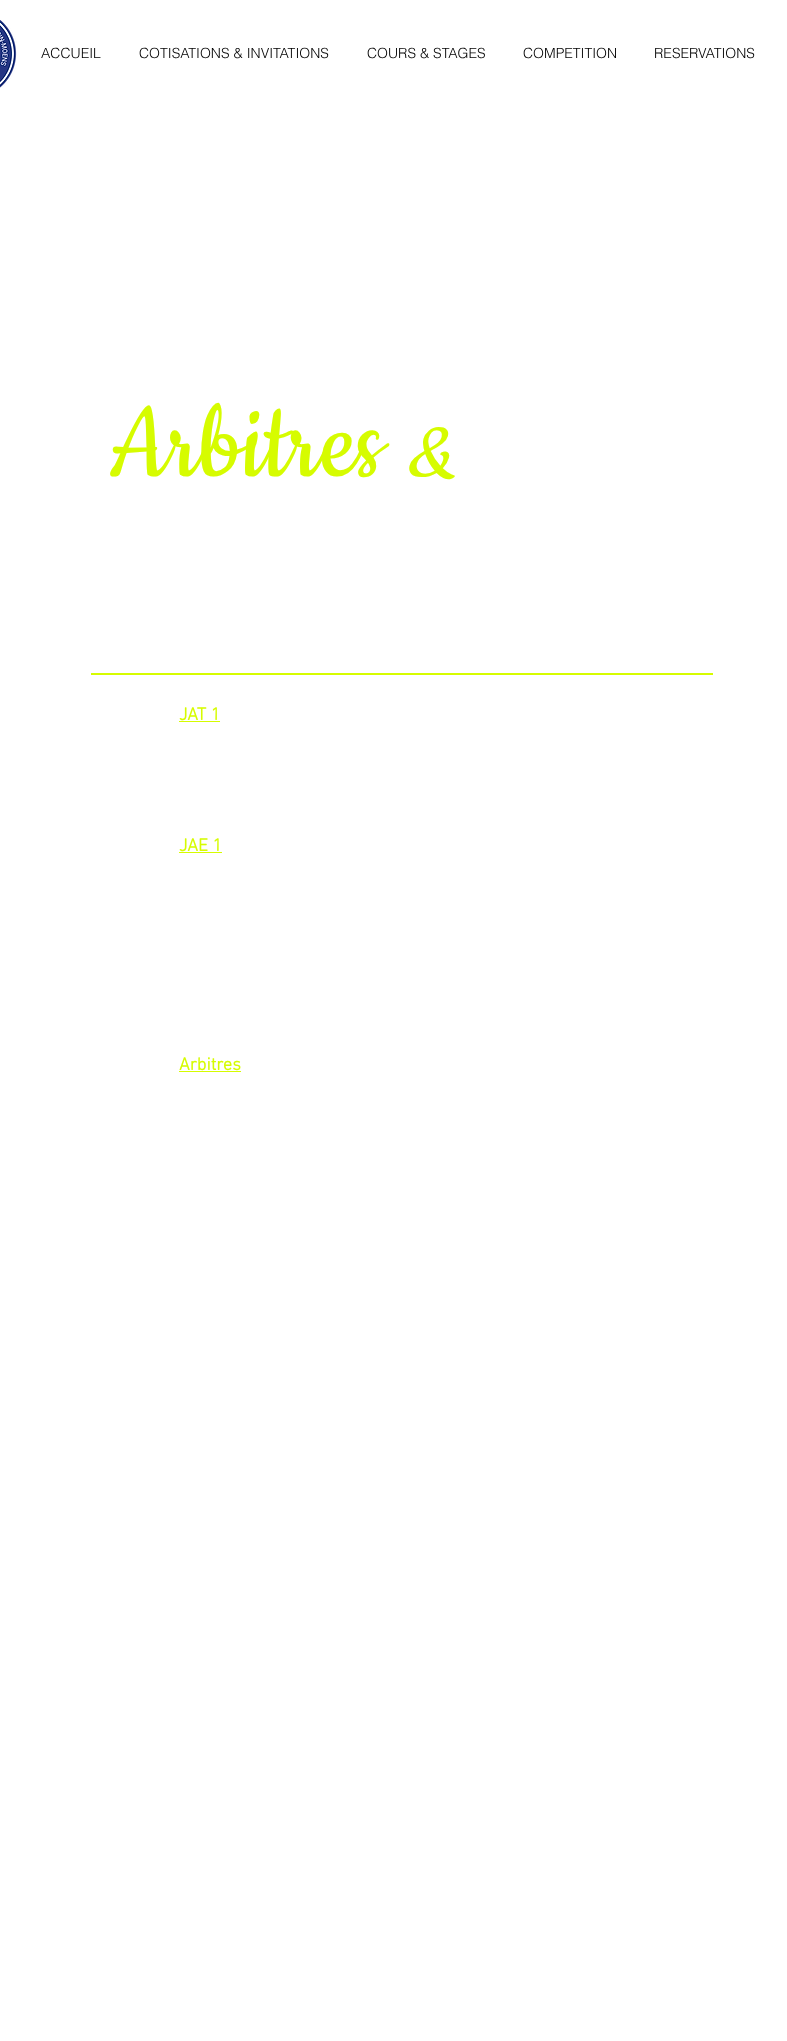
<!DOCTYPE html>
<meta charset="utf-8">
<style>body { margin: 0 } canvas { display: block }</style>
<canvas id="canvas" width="787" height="2041"></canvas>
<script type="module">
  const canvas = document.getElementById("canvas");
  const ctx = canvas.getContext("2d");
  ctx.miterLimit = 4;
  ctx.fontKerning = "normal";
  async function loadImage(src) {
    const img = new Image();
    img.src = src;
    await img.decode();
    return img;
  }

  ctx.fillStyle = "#ffffff";
  ctx.fillRect(0, 0, 787, 2041);
  ctx.drawImage(await loadImage("img1.png"), 0, 20, 17, 68);
  ctx.font = "300 14px helvetica";
  ctx.fillStyle = "#000000";
  ctx.fillText("ACCUEIL", 41, 58);
  ctx.fillText("COTISATIONS & INVITATIONS", 139, 58);
  ctx.fillText("COURS & STAGES", 367, 58);
  ctx.fillText("COMPETITION", 523, 58);
  ctx.fillText("RESERVATIONS", 654, 58);
  ctx.font = "122px Cookie";
  ctx.fillStyle = "#d6fc00";
  ctx.fillText("Arbitres", 109, 476);
  ctx.font = "italic 80px Cookie";
  ctx.fillText("&", 407, 476);
  ctx.fillRect(91, 673, 622, 2);
  ctx.font = "bold 18px 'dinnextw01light'";
  ctx.fillText("JAT 1", 179, 720);
  ctx.fillRect(179, 721, 41, 1);
  ctx.fillText("JAE 1", 179, 851);
  ctx.fillRect(179, 852, 43, 1);
  ctx.fillText("Arbitres", 179, 1070);
  ctx.fillRect(179, 1071, 62, 1);
</script>
